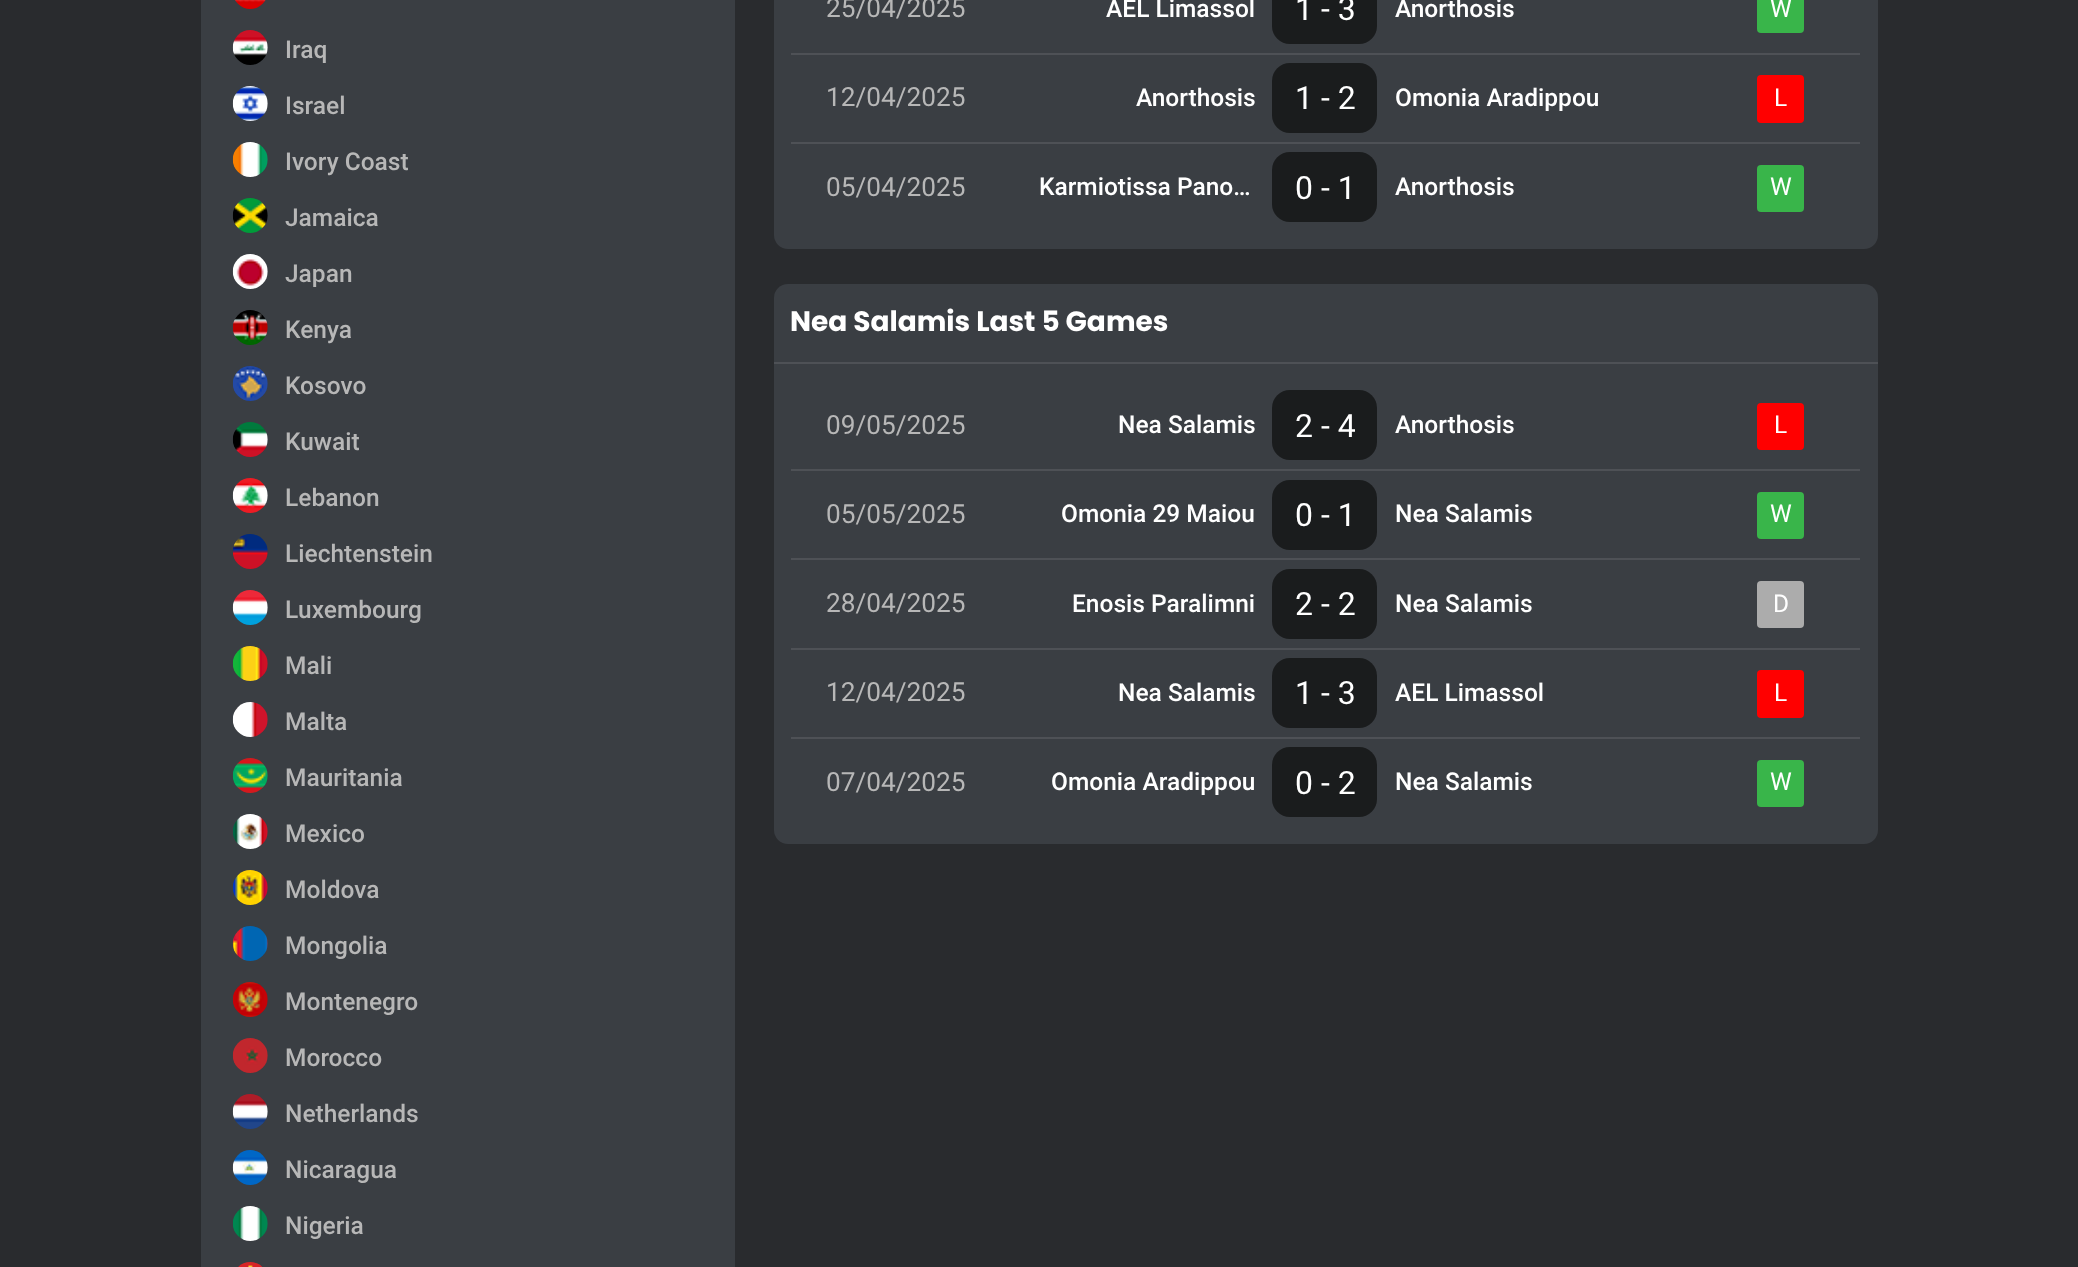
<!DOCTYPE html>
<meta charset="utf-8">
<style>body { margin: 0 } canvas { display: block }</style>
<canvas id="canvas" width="2078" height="1267"></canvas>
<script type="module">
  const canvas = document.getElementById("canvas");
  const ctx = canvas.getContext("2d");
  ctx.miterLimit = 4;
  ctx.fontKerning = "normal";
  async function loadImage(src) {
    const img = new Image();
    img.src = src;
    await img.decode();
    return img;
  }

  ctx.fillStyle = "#292b2e";
  ctx.fillRect(0, 0, 2078, 1267);
  ctx.fillStyle = "#3a3e43";
  ctx.fillRect(201, 0, 534, 1267);
  ctx.drawImage(await loadImage("img1.png"), 235, 0, 31, 9);
  ctx.drawImage(await loadImage("img2.png"), 232, 30, 36, 35);
  ctx.font = "500 24.5px Roboto";
  ctx.fillStyle = "#b7b7b7";
  ctx.fillText("Iraq", 285, 58);
  ctx.drawImage(await loadImage("img3.png"), 232, 86, 36, 35);
  ctx.fillText("Israel", 285, 114);
  ctx.drawImage(await loadImage("img4.png"), 232, 142, 36, 35);
  ctx.fillText("Ivory Coast", 285, 170);
  ctx.drawImage(await loadImage("img5.png"), 232, 198, 36, 35);
  ctx.fillText("Jamaica", 285, 226);
  ctx.drawImage(await loadImage("img6.png"), 232, 254, 36, 35);
  ctx.fillText("Japan", 285, 282);
  ctx.drawImage(await loadImage("img7.png"), 232, 310, 36, 35);
  ctx.fillText("Kenya", 285, 338);
  ctx.drawImage(await loadImage("img8.png"), 232, 366, 36, 35);
  ctx.fillText("Kosovo", 285, 394);
  ctx.drawImage(await loadImage("img9.png"), 232, 422, 36, 35);
  ctx.fillText("Kuwait", 285, 450);
  ctx.drawImage(await loadImage("img10.png"), 232, 478, 36, 35);
  ctx.fillText("Lebanon", 285, 506);
  ctx.drawImage(await loadImage("img11.png"), 232, 534, 36, 35);
  ctx.fillText("Liechtenstein", 285, 562);
  ctx.drawImage(await loadImage("img12.png"), 232, 590, 36, 35);
  ctx.fillText("Luxembourg", 285, 618);
  ctx.drawImage(await loadImage("img13.png"), 232, 646, 36, 35);
  ctx.fillText("Mali", 285, 674);
  ctx.drawImage(await loadImage("img14.png"), 232, 702, 36, 35);
  ctx.fillText("Malta", 285, 730);
  ctx.drawImage(await loadImage("img15.png"), 232, 758, 36, 35);
  ctx.fillText("Mauritania", 285, 786);
  ctx.drawImage(await loadImage("img16.png"), 233, 814, 35, 35);
  ctx.fillText("Mexico", 285, 842);
  ctx.drawImage(await loadImage("img17.png"), 232, 870, 36, 35);
  ctx.fillText("Moldova", 285, 898);
  ctx.drawImage(await loadImage("img18.png"), 232, 926, 36, 35);
  ctx.fillText("Mongolia", 285, 954);
  ctx.drawImage(await loadImage("img19.png"), 232, 982, 36, 35);
  ctx.fillText("Montenegro", 285, 1010);
  ctx.drawImage(await loadImage("img20.png"), 232, 1038, 36, 35);
  ctx.fillText("Morocco", 285, 1066);
  ctx.drawImage(await loadImage("img21.png"), 232, 1094, 36, 35);
  ctx.fillText("Netherlands", 285, 1122);
  ctx.drawImage(await loadImage("img22.png"), 232, 1150, 36, 35);
  ctx.fillText("Nicaragua", 285, 1178);
  ctx.drawImage(await loadImage("img23.png"), 232, 1206, 36, 35);
  ctx.fillText("Nigeria", 285, 1234);
  ctx.drawImage(await loadImage("img24.png"), 238, 1262, 25, 5);
  ctx.fillStyle = "#3a3e43";
  ctx.beginPath();
  ctx.roundRect(774, -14, 1104, 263, 14);
  ctx.fill();
  ctx.fillStyle = "#4e5156";
  ctx.fillRect(791, 53, 1069, 2);
  ctx.font = "26.25px Roboto";
  ctx.fillStyle = "#b7b7b7";
  ctx.fillText("25/04/2025", 826, 17);
  ctx.font = "500 24.5px Roboto";
  ctx.fillStyle = "#ffffff";
  ctx.fillText("AEL Limassol", 1106, 17);
  ctx.fillStyle = "#1a1c1d";
  ctx.beginPath();
  ctx.roundRect(1272, -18, 105, 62, 18);
  ctx.fill();
  ctx.font = "32px Roboto";
  ctx.fillStyle = "#ffffff";
  ctx.fillText("1 - 3", 1295, 20);
  ctx.font = "500 24.5px Roboto";
  ctx.fillText("Anorthosis", 1395, 17);
  ctx.fillStyle = "#39b54a";
  ctx.beginPath();
  ctx.roundRect(1757, -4, 47, 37, 4);
  ctx.fill();
  ctx.font = "24.5px Roboto";
  ctx.fillStyle = "#ffffff";
  ctx.fillText("W", 1770, 17);
  ctx.fillStyle = "#4e5156";
  ctx.fillRect(791, 142, 1069, 2);
  ctx.font = "26.25px Roboto";
  ctx.fillStyle = "#b7b7b7";
  ctx.fillText("12/04/2025", 826, 106);
  ctx.font = "500 24.5px Roboto";
  ctx.fillStyle = "#ffffff";
  ctx.fillText("Anorthosis", 1136, 106);
  ctx.fillStyle = "#1a1c1d";
  ctx.beginPath();
  ctx.roundRect(1272, 63, 105, 70, 18);
  ctx.fill();
  ctx.font = "32px Roboto";
  ctx.fillStyle = "#ffffff";
  ctx.fillText("1 - 2", 1295, 109);
  ctx.font = "500 24.5px Roboto";
  ctx.fillText("Omonia Aradippou", 1395, 106);
  ctx.fillStyle = "#ff0000";
  ctx.beginPath();
  ctx.roundRect(1757, 75, 47, 48, 4);
  ctx.fill();
  ctx.font = "24.5px Roboto";
  ctx.fillStyle = "#ffffff";
  ctx.fillText("L", 1774, 106);
  ctx.font = "26.25px Roboto";
  ctx.fillStyle = "#b7b7b7";
  ctx.fillText("05/04/2025", 826, 196);
  ctx.font = "500 24.5px Roboto";
  ctx.fillStyle = "#ffffff";
  ctx.fillText("Karmiotissa Pano…", 1039, 195);
  ctx.fillStyle = "#1a1c1d";
  ctx.beginPath();
  ctx.roundRect(1272, 152, 105, 70, 18);
  ctx.fill();
  ctx.font = "32px Roboto";
  ctx.fillStyle = "#ffffff";
  ctx.fillText("0 - 1", 1295, 199);
  ctx.font = "500 24.5px Roboto";
  ctx.fillText("Anorthosis", 1395, 195);
  ctx.fillStyle = "#39b54a";
  ctx.beginPath();
  ctx.roundRect(1757, 165, 47, 47, 4);
  ctx.fill();
  ctx.font = "24.5px Roboto";
  ctx.fillStyle = "#ffffff";
  ctx.fillText("W", 1770, 195);
  ctx.fillStyle = "#3a3e43";
  ctx.beginPath();
  ctx.roundRect(774, 284, 1104, 560, 14);
  ctx.fill();
  ctx.fillStyle = "#4e5156";
  ctx.fillRect(774, 362, 1104, 2);
  ctx.font = "bold 28px Poppins";
  ctx.fillStyle = "#ffffff";
  ctx.fillText("Nea Salamis Last 5 Games", 790, 331);
  ctx.fillStyle = "#4e5156";
  ctx.fillRect(791, 469, 1069, 2);
  ctx.font = "26.25px Roboto";
  ctx.fillStyle = "#b7b7b7";
  ctx.fillText("09/05/2025", 826, 434);
  ctx.font = "500 24.5px Roboto";
  ctx.fillStyle = "#ffffff";
  ctx.fillText("Nea Salamis", 1118, 433);
  ctx.fillStyle = "#1a1c1d";
  ctx.beginPath();
  ctx.roundRect(1272, 390, 105, 70, 18);
  ctx.fill();
  ctx.font = "32px Roboto";
  ctx.fillStyle = "#ffffff";
  ctx.fillText("2 - 4", 1295, 437);
  ctx.font = "500 24.5px Roboto";
  ctx.fillText("Anorthosis", 1395, 433);
  ctx.fillStyle = "#ff0000";
  ctx.beginPath();
  ctx.roundRect(1757, 403, 47, 47, 4);
  ctx.fill();
  ctx.font = "24.5px Roboto";
  ctx.fillStyle = "#ffffff";
  ctx.fillText("L", 1774, 433);
  ctx.fillStyle = "#4e5156";
  ctx.fillRect(791, 558, 1069, 2);
  ctx.font = "26.25px Roboto";
  ctx.fillStyle = "#b7b7b7";
  ctx.fillText("05/05/2025", 826, 523);
  ctx.font = "500 24.5px Roboto";
  ctx.fillStyle = "#ffffff";
  ctx.fillText("Omonia 29 Maiou", 1061, 522);
  ctx.fillStyle = "#1a1c1d";
  ctx.beginPath();
  ctx.roundRect(1272, 480, 105, 70, 18);
  ctx.fill();
  ctx.font = "32px Roboto";
  ctx.fillStyle = "#ffffff";
  ctx.fillText("0 - 1", 1295, 526);
  ctx.font = "500 24.5px Roboto";
  ctx.fillText("Nea Salamis", 1395, 522);
  ctx.fillStyle = "#39b54a";
  ctx.beginPath();
  ctx.roundRect(1757, 492, 47, 47, 4);
  ctx.fill();
  ctx.font = "24.5px Roboto";
  ctx.fillStyle = "#ffffff";
  ctx.fillText("W", 1770, 522);
  ctx.fillStyle = "#4e5156";
  ctx.fillRect(791, 648, 1069, 2);
  ctx.font = "26.25px Roboto";
  ctx.fillStyle = "#b7b7b7";
  ctx.fillText("28/04/2025", 826, 612);
  ctx.font = "500 24.5px Roboto";
  ctx.fillStyle = "#ffffff";
  ctx.fillText("Enosis Paralimni", 1072, 612);
  ctx.fillStyle = "#1a1c1d";
  ctx.beginPath();
  ctx.roundRect(1272, 569, 105, 70, 18);
  ctx.fill();
  ctx.font = "32px Roboto";
  ctx.fillStyle = "#ffffff";
  ctx.fillText("2 - 2", 1295, 615);
  ctx.font = "500 24.5px Roboto";
  ctx.fillText("Nea Salamis", 1395, 612);
  ctx.fillStyle = "#acacac";
  ctx.beginPath();
  ctx.roundRect(1757, 581, 47, 47, 4);
  ctx.fill();
  ctx.font = "24.5px Roboto";
  ctx.fillStyle = "#ffffff";
  ctx.fillText("D", 1773, 612);
  ctx.fillStyle = "#4e5156";
  ctx.fillRect(791, 737, 1069, 2);
  ctx.font = "26.25px Roboto";
  ctx.fillStyle = "#b7b7b7";
  ctx.fillText("12/04/2025", 826, 701);
  ctx.font = "500 24.5px Roboto";
  ctx.fillStyle = "#ffffff";
  ctx.fillText("Nea Salamis", 1118, 701);
  ctx.fillStyle = "#1a1c1d";
  ctx.beginPath();
  ctx.roundRect(1272, 658, 105, 70, 18);
  ctx.fill();
  ctx.font = "32px Roboto";
  ctx.fillStyle = "#ffffff";
  ctx.fillText("1 - 3", 1295, 704);
  ctx.font = "500 24.5px Roboto";
  ctx.fillText("AEL Limassol", 1395, 701);
  ctx.fillStyle = "#ff0000";
  ctx.beginPath();
  ctx.roundRect(1757, 670, 47, 48, 4);
  ctx.fill();
  ctx.font = "24.5px Roboto";
  ctx.fillStyle = "#ffffff";
  ctx.fillText("L", 1774, 701);
  ctx.font = "26.25px Roboto";
  ctx.fillStyle = "#b7b7b7";
  ctx.fillText("07/04/2025", 826, 791);
  ctx.font = "500 24.5px Roboto";
  ctx.fillStyle = "#ffffff";
  ctx.fillText("Omonia Aradippou", 1051, 790);
  ctx.fillStyle = "#1a1c1d";
  ctx.beginPath();
  ctx.roundRect(1272, 747, 105, 70, 18);
  ctx.fill();
  ctx.font = "32px Roboto";
  ctx.fillStyle = "#ffffff";
  ctx.fillText("0 - 2", 1295, 794);
  ctx.font = "500 24.5px Roboto";
  ctx.fillText("Nea Salamis", 1395, 790);
  ctx.fillStyle = "#39b54a";
  ctx.beginPath();
  ctx.roundRect(1757, 760, 47, 47, 4);
  ctx.fill();
  ctx.font = "24.5px Roboto";
  ctx.fillStyle = "#ffffff";
  ctx.fillText("W", 1770, 790);
</script>
